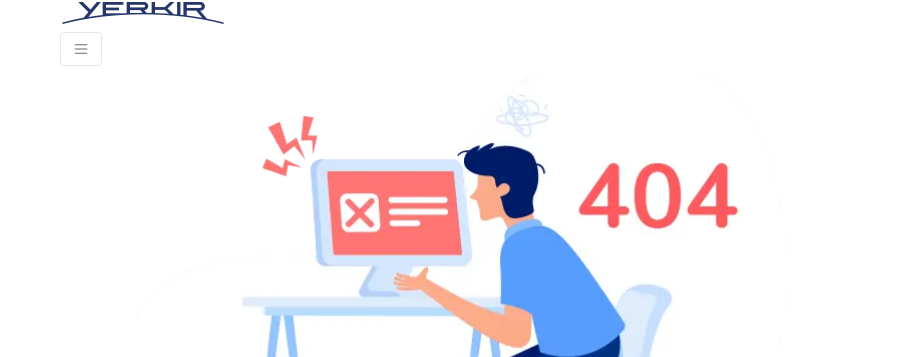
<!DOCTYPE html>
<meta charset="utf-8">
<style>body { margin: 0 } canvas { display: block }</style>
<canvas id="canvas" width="915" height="357"></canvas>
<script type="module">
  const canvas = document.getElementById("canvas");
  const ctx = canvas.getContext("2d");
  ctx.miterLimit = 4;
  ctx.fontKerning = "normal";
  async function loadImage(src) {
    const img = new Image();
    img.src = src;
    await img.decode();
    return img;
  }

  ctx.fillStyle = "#ffffff";
  ctx.fillRect(0, 0, 915, 357);
  ctx.drawImage(await loadImage("img1.png"), 62, 2, 162, 22);
  ctx.beginPath();
  ctx.roundRect(60.5, 32.5, 41, 33, 3.5);
  ctx.strokeStyle = "#e6e6e6";
  ctx.stroke();
  ctx.drawImage(await loadImage("img2.png"), 74, 44, 14, 10);
  ctx.drawImage(await loadImage("img3.png"), 136, 72, 651, 285);
</script>
